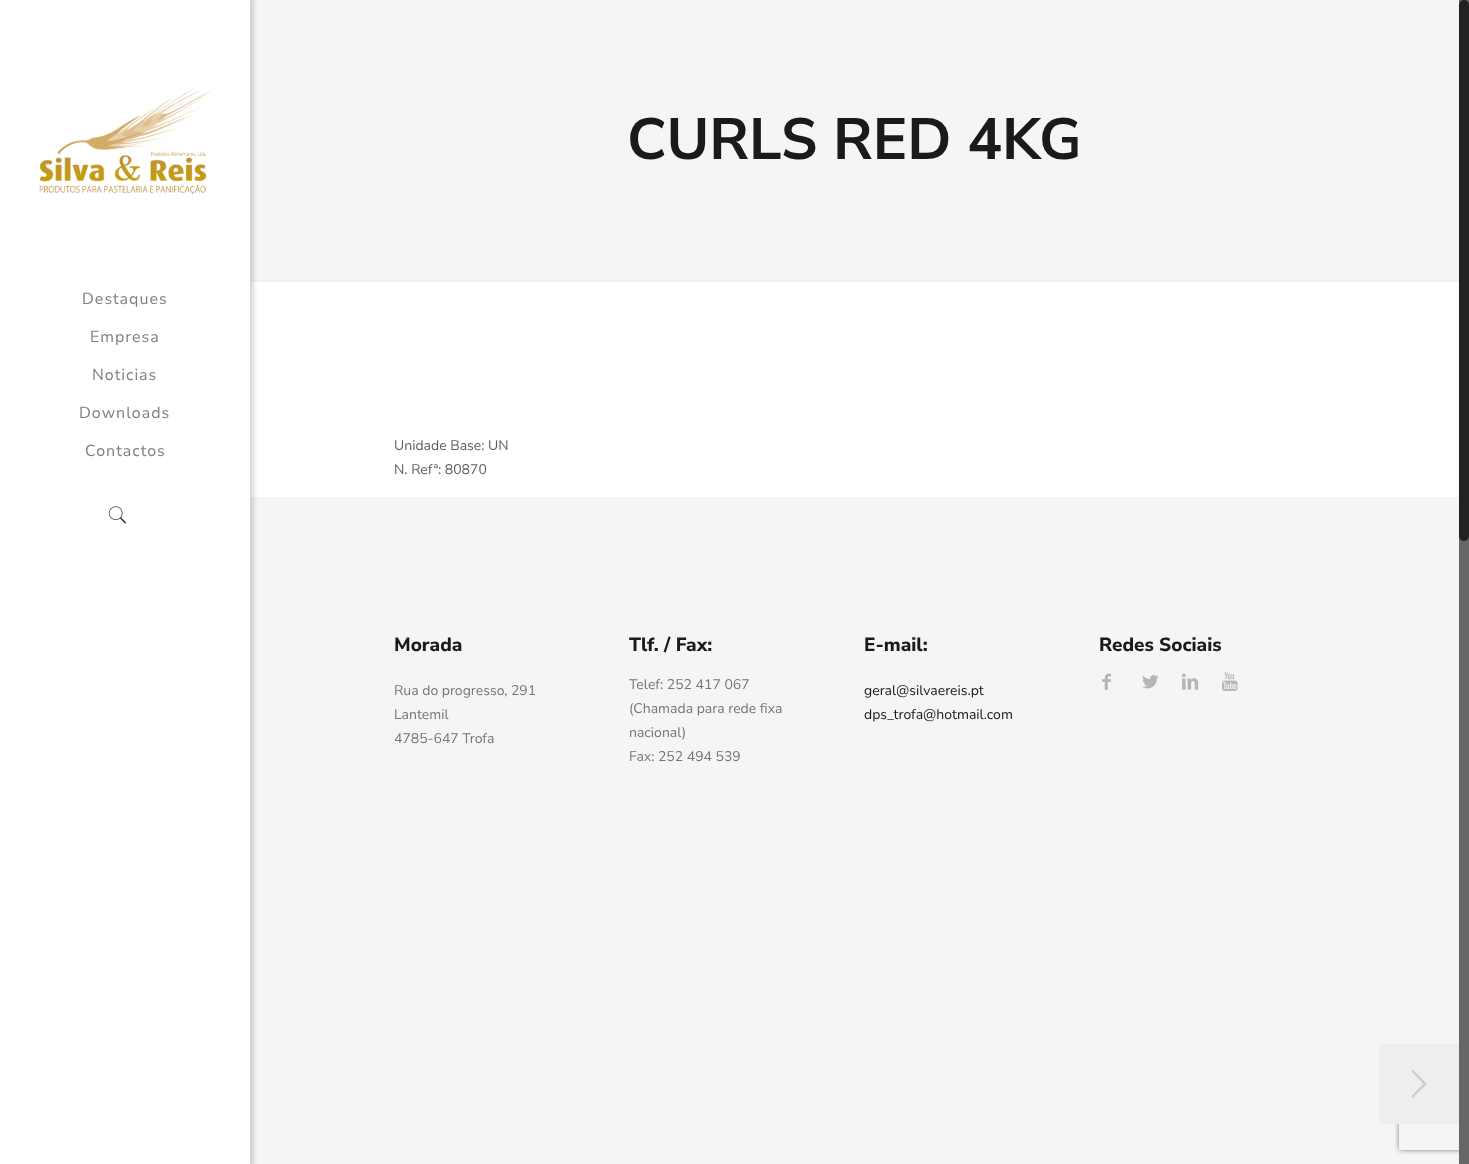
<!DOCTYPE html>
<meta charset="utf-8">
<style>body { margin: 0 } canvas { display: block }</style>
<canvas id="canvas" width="1469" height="1164"></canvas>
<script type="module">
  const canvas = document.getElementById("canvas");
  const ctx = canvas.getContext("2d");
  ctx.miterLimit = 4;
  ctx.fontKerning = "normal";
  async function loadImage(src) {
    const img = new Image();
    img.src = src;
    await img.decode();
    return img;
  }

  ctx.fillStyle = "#ffffff";
  ctx.fillRect(0, 0, 1469, 1164);
  ctx.fillStyle = "#f5f5f5";
  ctx.fillRect(250, 0, 1209, 280);
  ctx.drawImage(await loadImage("img3.png"), 250, 280, 1209, 2);
  ctx.fillRect(250, 497, 1209, 667);
  ctx.fillStyle = "rgba(0, 0, 0, 0.15)";
  ctx.filter = "blur(2px)";
  ctx.beginPath();
  ctx.rect(0, -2, 254, 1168);
  ctx.fill();
  ctx.filter = "none";
  ctx.fillStyle = "#ffffff";
  ctx.fillRect(0, 0, 250, 1164);
  ctx.drawImage(await loadImage("img1.png"), 39, 87, 172, 108);
  ctx.letterSpacing = "1px";
  ctx.font = "16px Nunito Sans";
  ctx.fillStyle = "#808080";
  ctx.fillText("Destaques", 82, 304);
  ctx.fillText("Empresa", 90, 342);
  ctx.fillText("Noticias", 92, 380);
  ctx.fillText("Downloads", 79, 418);
  ctx.fillText("Contactos", 85, 456);
  ctx.drawImage(await loadImage("img2.png"), 108, 506, 19, 18);
  ctx.letterSpacing = "0px";
  ctx.font = "bold 58px Nunito Sans";
  ctx.fillStyle = "#1a1a1a";
  ctx.fillText("CURLS RED 4KG", 627, 159);
  ctx.font = "14px Nunito Sans";
  ctx.fillStyle = "#5e5e5e";
  ctx.fillText("Unidade Base: UN", 394, 450);
  ctx.fillText("N. Refª: 80870", 394, 474);
  ctx.font = "800 19px Nunito Sans";
  ctx.fillStyle = "#1a1a1a";
  ctx.fillText("Morada", 394, 651);
  ctx.font = "14px Nunito Sans";
  ctx.fillStyle = "#767676";
  ctx.fillText("Rua do progresso, 291", 394, 695);
  ctx.fillText("Lantemil", 394, 719);
  ctx.fillText("4785-647 Trofa", 394, 743);
  ctx.font = "800 19px Nunito Sans";
  ctx.fillStyle = "#1a1a1a";
  ctx.fillText("Tlf. / Fax:", 629, 651);
  ctx.font = "14px Nunito Sans";
  ctx.fillStyle = "#767676";
  ctx.fillText("Telef: 252 417 067", 629, 689);
  ctx.fillText("(Chamada para rede fixa", 629, 713);
  ctx.fillText("nacional)", 629, 737);
  ctx.fillText("Fax: 252 494 539", 629, 761);
  ctx.font = "800 19px Nunito Sans";
  ctx.fillStyle = "#1a1a1a";
  ctx.fillText("E-mail:", 864, 651);
  ctx.font = "14px Nunito Sans";
  ctx.fillText("geral@silvaereis.pt", 864, 695);
  ctx.fillText("dps_trofa@hotmail.com", 864, 719);
  ctx.font = "800 19px Nunito Sans";
  ctx.fillText("Redes Sociais", 1099, 651);
  ctx.drawImage(await loadImage("img4.png"), 1102, 673, 9, 17);
  ctx.drawImage(await loadImage("img5.png"), 1142, 675, 17, 14);
  ctx.drawImage(await loadImage("img6.png"), 1182, 673, 17, 17);
  ctx.drawImage(await loadImage("img7.png"), 1222, 672, 16, 19);
  ctx.save();
  ctx.beginPath();
  ctx.moveTo(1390, 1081);
  ctx.lineTo(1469, 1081);
  ctx.lineTo(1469, 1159);
  ctx.lineTo(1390, 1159);
  ctx.closePath();
  ctx.moveTo(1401, 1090);
  ctx.lineTo(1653, 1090);
  ctx.bezierCurveTo(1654, 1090, 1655, 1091, 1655, 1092);
  ctx.lineTo(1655, 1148);
  ctx.bezierCurveTo(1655, 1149, 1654, 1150, 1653, 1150);
  ctx.lineTo(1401, 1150);
  ctx.bezierCurveTo(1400, 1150, 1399, 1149, 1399, 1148);
  ctx.lineTo(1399, 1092);
  ctx.bezierCurveTo(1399, 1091, 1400, 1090, 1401, 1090);
  ctx.closePath();
  ctx.clip("evenodd");
  ctx.fillStyle = "#808080";
  ctx.filter = "blur(2.5px)";
  ctx.beginPath();
  ctx.roundRect(1399, 1090, 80, 60, 2);
  ctx.fill();
  ctx.filter = "none";
  ctx.restore();
  ctx.fillStyle = "#666666";
  ctx.fillRect(1459, 0, 10, 1164);
  ctx.fillStyle = "#222222";
  ctx.beginPath();
  ctx.roundRect(1459, 0, 10, 541, 5);
  ctx.fill();
  ctx.fillStyle = "#eeeeee";
  ctx.fillRect(1379, 1044, 80, 80);
  ctx.drawImage(await loadImage("img8.png"), 1411, 1070, 16, 28);
</script>
